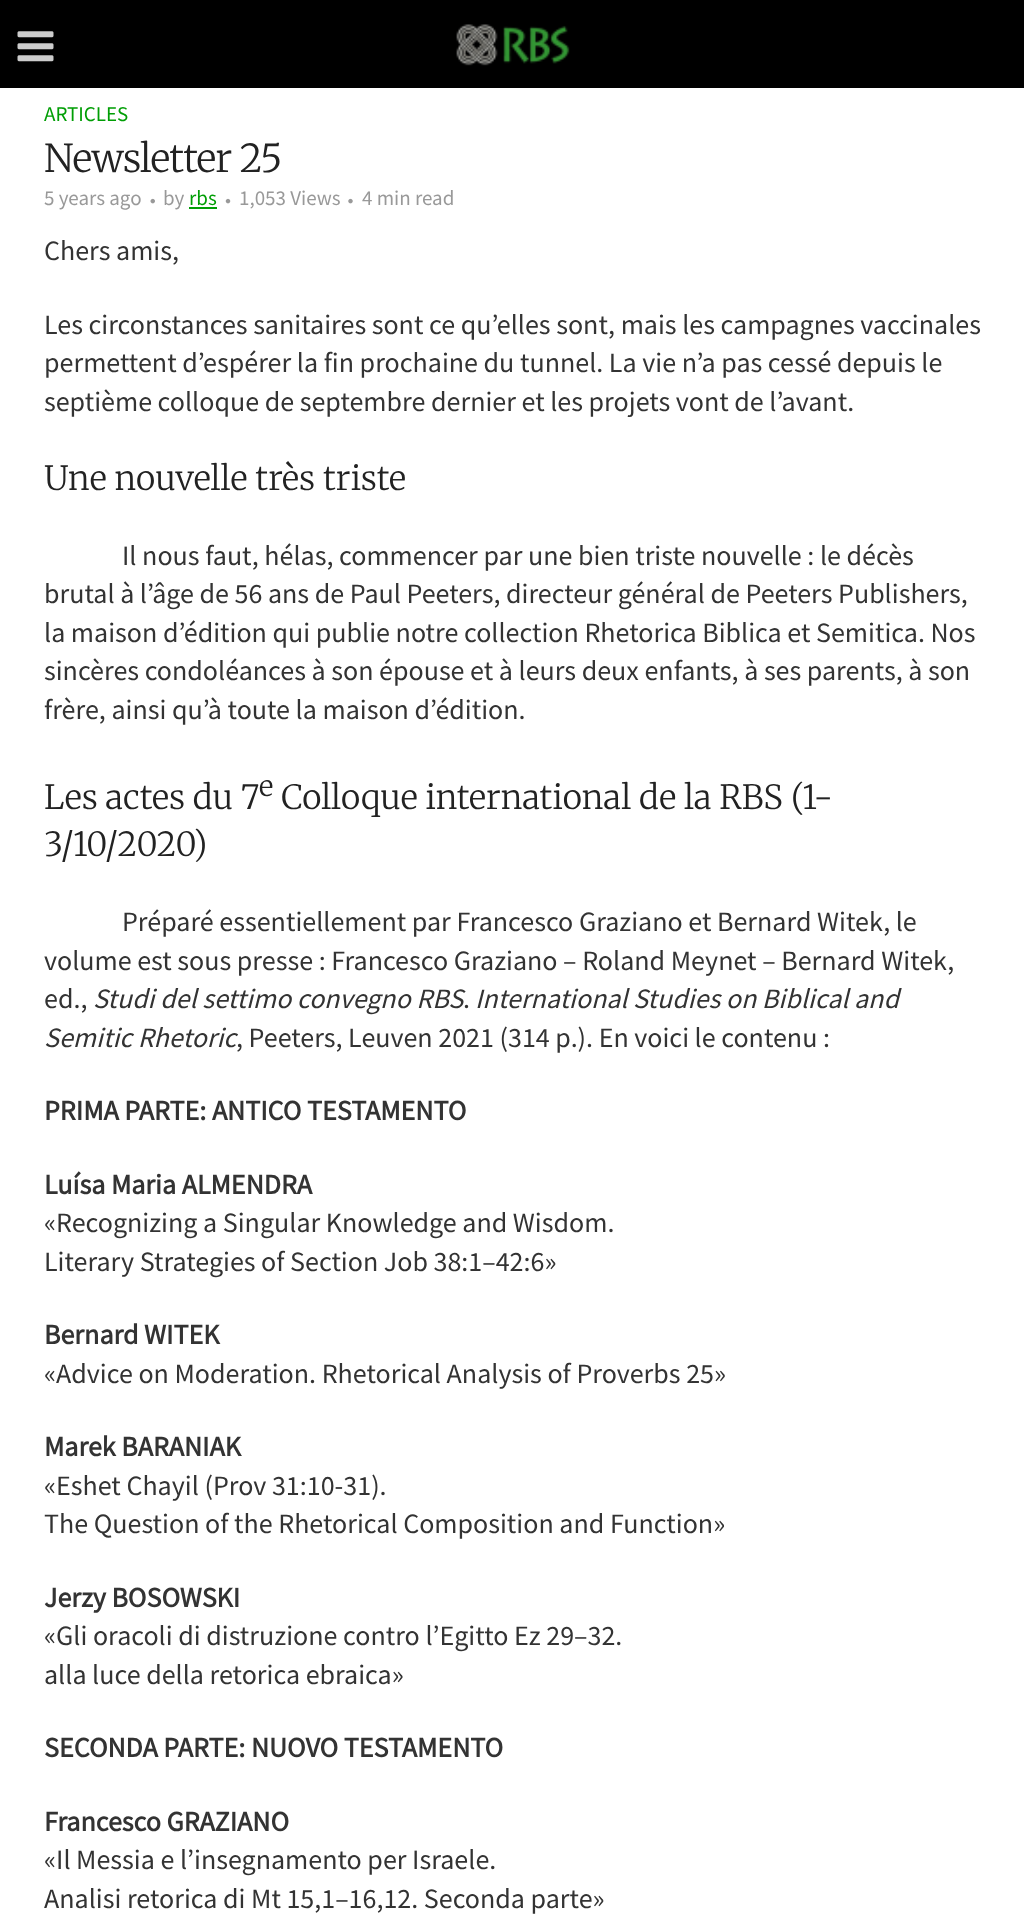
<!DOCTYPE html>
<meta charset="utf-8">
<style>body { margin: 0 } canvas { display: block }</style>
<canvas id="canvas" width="1024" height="1918"></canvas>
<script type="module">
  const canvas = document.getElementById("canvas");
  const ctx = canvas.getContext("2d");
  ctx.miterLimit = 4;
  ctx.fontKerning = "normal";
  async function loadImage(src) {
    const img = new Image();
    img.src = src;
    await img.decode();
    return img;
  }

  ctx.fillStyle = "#ffffff";
  ctx.fillRect(0, 0, 1024, 1918);
  ctx.fillStyle = "#000000";
  ctx.fillRect(0, 0, 1024, 88);
  ctx.drawImage(await loadImage("img1.png"), 17, 31, 37, 31);
  ctx.drawImage(await loadImage("img2.png"), 456, 24, 114, 42);
  ctx.font = "21px Source Sans Pro";
  ctx.fillStyle = "#009e05";
  ctx.fillText("ARTICLES", 44, 121);
  ctx.letterSpacing = "-0.9px";
  ctx.font = "300 38.5px Merriweather";
  ctx.fillStyle = "#222222";
  ctx.fillText("Newsletter 25", 44, 172);
  ctx.letterSpacing = "0px";
  ctx.font = "21px Source Sans Pro";
  ctx.fillStyle = "#999999";
  ctx.fillText("5 years ago", 44, 205);
  ctx.drawImage(await loadImage("img3.png"), 150, 198, 5, 6);
  ctx.fillText("by", 163, 205);
  ctx.fillStyle = "#009e05";
  ctx.fillRect(189, 207, 28, 2);
  ctx.fillText("rbs", 189, 205);
  ctx.drawImage(await loadImage("img4.png"), 225, 198, 6, 6);
  ctx.fillStyle = "#999999";
  ctx.fillText("1,053 Views", 239, 205);
  ctx.drawImage(await loadImage("img5.png"), 348, 198, 5, 6);
  ctx.fillText("4 min read", 362, 205);
  ctx.font = "28px Source Sans Pro";
  ctx.fillStyle = "#333333";
  ctx.fillText("Chers amis,", 44, 260);
  ctx.fillText("Les circonstances sanitaires sont ce qu’elles sont, mais les campagnes vaccinales", 44, 334);
  ctx.fillText("permettent d’espérer la fin prochaine du tunnel. La vie n’a pas cessé depuis le", 44, 372);
  ctx.fillText("septième colloque de septembre dernier et les projets vont de l’avant.", 44, 411);
  ctx.font = "300 33.25px Merriweather";
  ctx.fillStyle = "#222222";
  ctx.fillText("Une nouvelle très triste", 44, 490);
  ctx.font = "28px Source Sans Pro";
  ctx.fillStyle = "#333333";
  ctx.fillText("Il nous faut, hélas, commencer par une bien triste nouvelle : le décès", 122, 565);
  ctx.fillText("brutal à l’âge de 56 ans de Paul Peeters, directeur général de Peeters Publishers,", 44, 603);
  ctx.fillText("la maison d’édition qui publie notre collection Rhetorica Biblica et Semitica. Nos", 44, 642);
  ctx.fillText("sincères condoléances à son épouse et à leurs deux enfants, à ses parents, à son", 44, 680);
  ctx.fillText("frère, ainsi qu’à toute la maison d’édition.", 44, 719);
  ctx.font = "300 33.25px Merriweather";
  ctx.fillStyle = "#222222";
  ctx.fillText("Les actes du 7", 44, 809);
  ctx.font = "300 28px Merriweather";
  ctx.fillText("e", 259, 796);
  ctx.font = "300 33.25px Merriweather";
  ctx.fillText("Colloque international de la RBS (1-", 281, 809);
  ctx.fillText("3/10/2020)", 44, 856);
  ctx.font = "28px Source Sans Pro";
  ctx.fillStyle = "#333333";
  ctx.fillText("Préparé essentiellement par Francesco Graziano et Bernard Witek, le", 122, 931);
  ctx.fillText("volume est sous presse : Francesco Graziano – Roland Meynet – Bernard Witek,", 44, 970);
  ctx.fillText("ed.,", 44, 1008);
  ctx.font = "italic 28px Source Sans Pro";
  ctx.fillText("Studi del settimo convegno RBS", 93, 1008);
  ctx.font = "28px Source Sans Pro";
  ctx.fillText(".", 463, 1008);
  ctx.font = "italic 28px Source Sans Pro";
  ctx.fillText("International Studies on Biblical and", 475, 1008);
  ctx.fillText("Semitic Rhetoric", 44, 1047);
  ctx.font = "28px Source Sans Pro";
  ctx.fillText(", Peeters, Leuven 2021 (314 p.). En voici le contenu :", 236, 1047);
  ctx.font = "bold 28px Source Sans Pro";
  ctx.fillText("PRIMA PARTE: ANTICO TESTAMENTO", 44, 1120);
  ctx.fillText("Luísa Maria ALMENDRA", 44, 1194);
  ctx.font = "28px Source Sans Pro";
  ctx.fillText("«Recognizing a Singular Knowledge and Wisdom.", 44, 1232);
  ctx.fillText("Literary Strategies of Section Job 38:1–42:6»", 44, 1271);
  ctx.font = "bold 28px Source Sans Pro";
  ctx.fillText("Bernard WITEK", 44, 1344);
  ctx.font = "28px Source Sans Pro";
  ctx.fillText("«Advice on Moderation. Rhetorical Analysis of Proverbs 25»", 44, 1383);
  ctx.font = "bold 28px Source Sans Pro";
  ctx.fillText("Marek BARANIAK", 44, 1456);
  ctx.font = "28px Source Sans Pro";
  ctx.fillText("«Eshet Chayil (Prov 31:10-31).", 44, 1495);
  ctx.fillText("The Question of the Rhetorical Composition and Function»", 44, 1533);
  ctx.font = "bold 28px Source Sans Pro";
  ctx.fillText("Jerzy BOSOWSKI", 44, 1607);
  ctx.font = "28px Source Sans Pro";
  ctx.fillText("«Gli oracoli di distruzione contro l’Egitto Ez 29–32.", 44, 1645);
  ctx.fillText("alla luce della retorica ebraica»", 44, 1684);
  ctx.font = "bold 28px Source Sans Pro";
  ctx.fillText("SECONDA PARTE: NUOVO TESTAMENTO", 44, 1757);
  ctx.fillText("Francesco GRAZIANO", 44, 1831);
  ctx.font = "28px Source Sans Pro";
  ctx.fillText("«Il Messia e l’insegnamento per Israele.", 44, 1869);
  ctx.fillText("Analisi retorica di Mt 15,1–16,12. Seconda parte»", 44, 1908);
</script>
